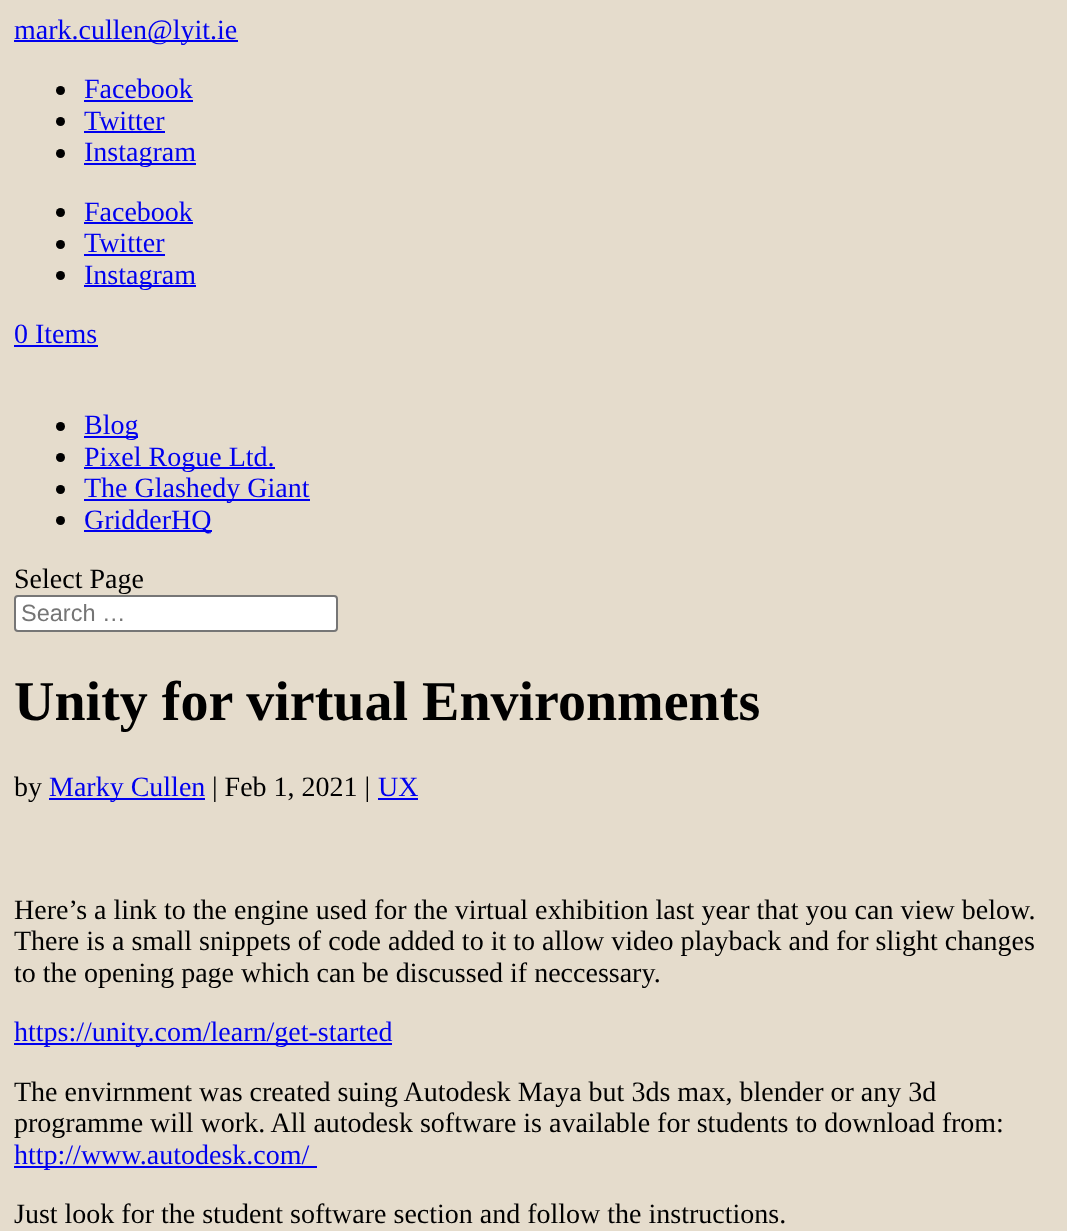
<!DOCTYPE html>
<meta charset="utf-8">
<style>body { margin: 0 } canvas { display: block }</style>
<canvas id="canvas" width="1067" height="1231"></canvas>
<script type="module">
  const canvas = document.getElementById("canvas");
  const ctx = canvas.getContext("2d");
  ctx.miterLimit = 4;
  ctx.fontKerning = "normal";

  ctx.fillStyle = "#e5dccc";
  ctx.fillRect(0, 0, 1067, 1231);
  ctx.fillStyle = "#0000ee";
  ctx.fillRect(14, 40, 224, 2);
  ctx.font = "28px Liberation Serif";
  ctx.fillText("mark.cullen@lyit.ie", 14, 39);
  ctx.fillStyle = "#000000";
  ctx.beginPath();
  ctx.arc(60.5, 90.5, 4.5, 0, Math.PI * 2);
  ctx.fill();
  ctx.fillStyle = "#0000ee";
  ctx.fillText("Facebook", 84, 98);
  ctx.fillRect(84, 100, 109, 2);
  ctx.fillStyle = "#000000";
  ctx.beginPath();
  ctx.arc(60.5, 121.5, 4.5, 0, Math.PI * 2);
  ctx.fill();
  ctx.fillStyle = "#0000ee";
  ctx.fillText("Twitter", 84, 130);
  ctx.fillRect(84, 131, 81, 2);
  ctx.fillStyle = "#000000";
  ctx.beginPath();
  ctx.arc(60.5, 153.5, 4.5, 0, Math.PI * 2);
  ctx.fill();
  ctx.fillStyle = "#0000ee";
  ctx.fillRect(84, 163, 112, 2);
  ctx.fillText("Instagram", 84, 161);
  ctx.fillStyle = "#000000";
  ctx.beginPath();
  ctx.arc(60.5, 212.5, 4.5, 0, Math.PI * 2);
  ctx.fill();
  ctx.fillStyle = "#0000ee";
  ctx.fillText("Facebook", 84, 221);
  ctx.fillRect(84, 222, 109, 2);
  ctx.fillStyle = "#000000";
  ctx.beginPath();
  ctx.arc(60.5, 244.5, 4.5, 0, Math.PI * 2);
  ctx.fill();
  ctx.fillStyle = "#0000ee";
  ctx.fillText("Twitter", 84, 252);
  ctx.fillRect(84, 254, 81, 2);
  ctx.fillStyle = "#000000";
  ctx.beginPath();
  ctx.arc(60.5, 275.5, 4.5, 0, Math.PI * 2);
  ctx.fill();
  ctx.fillStyle = "#0000ee";
  ctx.fillRect(84, 285, 112, 2);
  ctx.fillText("Instagram", 84, 284);
  ctx.fillText("0 Items", 14, 343);
  ctx.fillRect(14, 345, 84, 2);
  ctx.fillStyle = "#000000";
  ctx.beginPath();
  ctx.arc(60.5, 426.5, 4.5, 0, Math.PI * 2);
  ctx.fill();
  ctx.fillStyle = "#0000ee";
  ctx.fillRect(84, 436, 54, 2);
  ctx.fillText("Blog", 84, 434);
  ctx.fillStyle = "#000000";
  ctx.beginPath();
  ctx.arc(60.5, 457.5, 4.5, 0, Math.PI * 2);
  ctx.fill();
  ctx.fillStyle = "#0000ee";
  ctx.fillRect(84, 467, 191, 2);
  ctx.fillText("Pixel Rogue Ltd.", 84, 466);
  ctx.fillStyle = "#000000";
  ctx.beginPath();
  ctx.arc(60.5, 489.5, 4.5, 0, Math.PI * 2);
  ctx.fill();
  ctx.fillStyle = "#0000ee";
  ctx.fillRect(84, 499, 226, 2);
  ctx.fillText("The Glashedy Giant", 84, 497);
  ctx.fillStyle = "#000000";
  ctx.beginPath();
  ctx.arc(60.5, 520.5, 4.5, 0, Math.PI * 2);
  ctx.fill();
  ctx.fillStyle = "#0000ee";
  ctx.fillRect(84, 530, 128, 2);
  ctx.fillText("GridderHQ", 84, 529);
  ctx.fillStyle = "#000000";
  ctx.fillText("Select Page", 14, 588);
  ctx.fillStyle = "#ffffff";
  ctx.beginPath();
  ctx.roundRect(15, 596, 322, 35, 3);
  ctx.fill();
  ctx.strokeStyle = "#767676";
  ctx.lineWidth = 2;
  ctx.stroke();
  ctx.font = "23.5px Liberation Sans";
  ctx.fillStyle = "#757575";
  ctx.fillText("Search …", 21, 621);
  ctx.font = "bold 56px Liberation Serif";
  ctx.fillStyle = "#000000";
  ctx.fillText("Unity for virtual Environments", 14, 720);
  ctx.font = "28px Liberation Serif";
  ctx.fillText("by", 14, 796);
  ctx.fillStyle = "#0000ee";
  ctx.fillRect(49, 798, 156, 2);
  ctx.fillText("Marky Cullen", 49, 796);
  ctx.fillStyle = "#000000";
  ctx.fillText("| Feb 1, 2021 |", 212, 796);
  ctx.fillStyle = "#0000ee";
  ctx.fillText("UX", 378, 796);
  ctx.fillRect(378, 798, 40, 2);
  ctx.fillStyle = "#000000";
  ctx.fillText("Here’s a link to the engine used for the virtual exhibition last year that you can view below.", 14, 919);
  ctx.fillText("There is a small snippets of code added to it to allow video playback and for slight changes", 14, 950);
  ctx.fillText("to the opening page which can be discussed if neccessary.", 14, 982);
  ctx.fillStyle = "#0000ee";
  ctx.fillRect(14, 1043, 378, 2);
  ctx.fillText("https://unity.com/learn/get-started", 14, 1041);
  ctx.fillStyle = "#000000";
  ctx.fillText("The envirnment was created suing Autodesk Maya but 3ds max, blender or any 3d", 14, 1101);
  ctx.fillText("programme will work. All autodesk software is available for students to download from:", 14, 1132);
  ctx.fillStyle = "#0000ee";
  ctx.fillRect(14, 1166, 303, 2);
  ctx.fillText("http://www.autodesk.com/", 14, 1164);
  ctx.fillStyle = "#000000";
  ctx.fillText("Just look for the student software section and follow the instructions.", 14, 1223);
</script>
